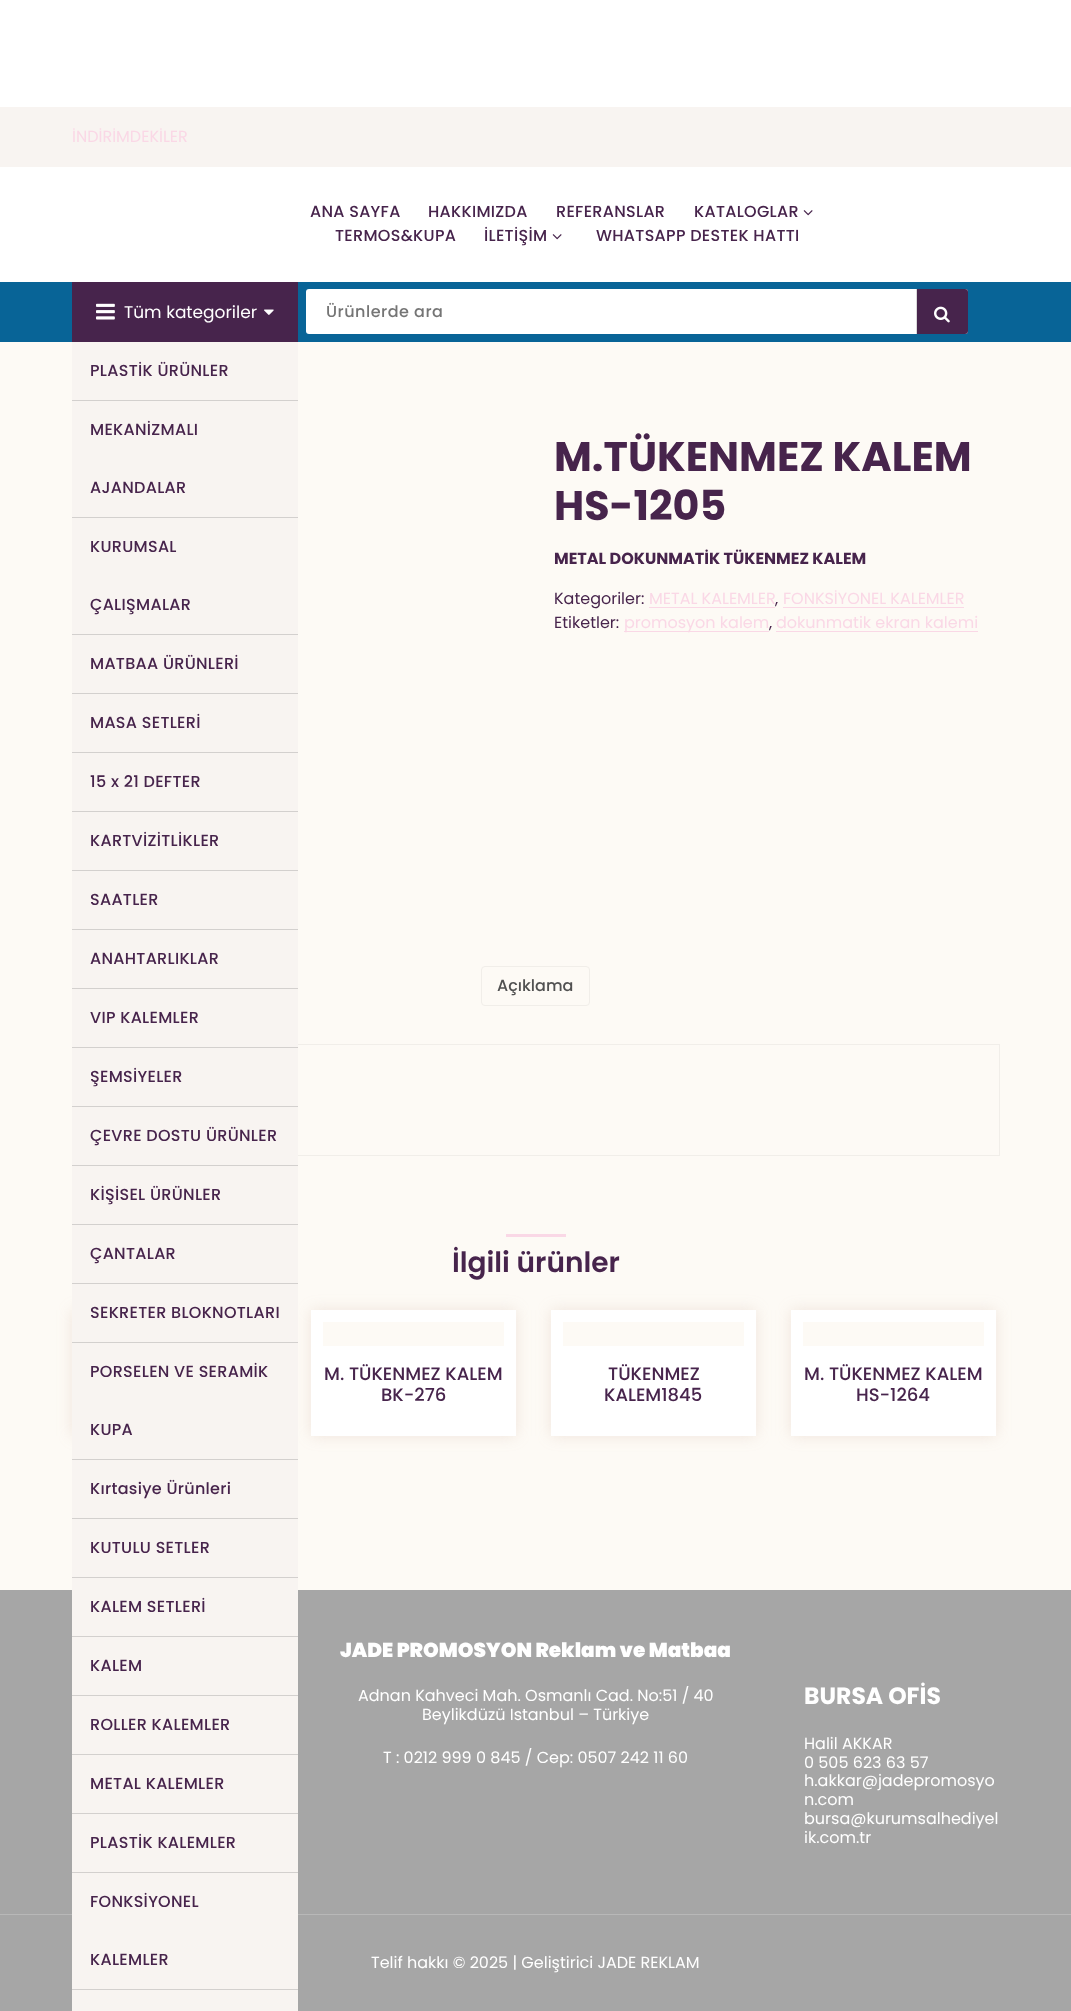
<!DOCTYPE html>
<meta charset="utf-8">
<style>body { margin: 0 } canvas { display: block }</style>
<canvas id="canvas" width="1071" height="2011"></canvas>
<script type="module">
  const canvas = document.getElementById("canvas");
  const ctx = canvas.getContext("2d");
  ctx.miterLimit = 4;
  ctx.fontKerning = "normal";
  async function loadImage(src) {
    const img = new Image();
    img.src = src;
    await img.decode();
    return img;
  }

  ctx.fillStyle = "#ffffff";
  ctx.fillRect(0, 0, 1071, 2011);
  ctx.fillStyle = "#f8f4f1";
  ctx.fillRect(0, 107, 1071, 60);
  ctx.font = "16px Poppins";
  ctx.fillStyle = "#fad8e6";
  ctx.fillText("İNDİRİMDEKİLER", 72, 142);
  ctx.letterSpacing = "0.3px";
  ctx.font = "500 16px Poppins";
  ctx.fillStyle = "#47244c";
  ctx.fillText("ANA SAYFA", 310, 217);
  ctx.fillText("HAKKIMIZDA", 428, 217);
  ctx.fillText("REFERANSLAR", 556, 217);
  ctx.fillText("KATALOGLAR", 694, 217);
  ctx.drawImage(await loadImage("img1.png"), 803, 210, 10, 6);
  ctx.fillText("TERMOS&KUPA", 335, 241);
  ctx.fillText("İLETİŞİM", 484, 241);
  ctx.drawImage(await loadImage("img1.png"), 552, 234, 10, 6);
  ctx.fillText("WHATSAPP DESTEK HATTI", 596, 241);
  ctx.fillStyle = "#086497";
  ctx.fillRect(0, 282, 1071, 60);
  ctx.fillStyle = "#47244c";
  ctx.fillRect(72, 282, 226, 60);
  ctx.drawImage(await loadImage("img2.png"), 96, 303, 19, 17);
  ctx.letterSpacing = "0px";
  ctx.font = "17px Poppins";
  ctx.fillStyle = "#ffffff";
  ctx.fillText("Tüm kategoriler", 124, 318);
  ctx.drawImage(await loadImage("img3.png"), 264, 309, 10, 6);
  ctx.fillStyle = "#fdfaf5";
  ctx.fillRect(0, 342, 1071, 1248);
  ctx.fillStyle = "#f8f4f1";
  ctx.fillRect(72, 342, 226, 58);
  ctx.fillStyle = "#d3d0ce";
  ctx.fillRect(72, 400, 226, 1);
  ctx.letterSpacing = "0.3px";
  ctx.font = "500 16px Poppins";
  ctx.fillStyle = "#47244c";
  ctx.fillText("PLASTİK ÜRÜNLER", 90, 376);
  ctx.fillStyle = "#f8f4f1";
  ctx.fillRect(72, 401, 226, 116);
  ctx.fillStyle = "#d3d0ce";
  ctx.fillRect(72, 517, 226, 1);
  ctx.fillStyle = "#47244c";
  ctx.fillText("MEKANİZMALI", 90, 435);
  ctx.fillText("AJANDALAR", 90, 493);
  ctx.fillStyle = "#f8f4f1";
  ctx.fillRect(72, 518, 226, 116);
  ctx.fillStyle = "#d3d0ce";
  ctx.fillRect(72, 634, 226, 1);
  ctx.fillStyle = "#47244c";
  ctx.fillText("KURUMSAL", 90, 552);
  ctx.fillText("ÇALIŞMALAR", 90, 610);
  ctx.fillStyle = "#f8f4f1";
  ctx.fillRect(72, 635, 226, 58);
  ctx.fillStyle = "#d3d0ce";
  ctx.fillRect(72, 693, 226, 1);
  ctx.fillStyle = "#47244c";
  ctx.fillText("MATBAA ÜRÜNLERİ", 90, 669);
  ctx.fillStyle = "#f8f4f1";
  ctx.fillRect(72, 694, 226, 58);
  ctx.fillStyle = "#d3d0ce";
  ctx.fillRect(72, 752, 226, 1);
  ctx.fillStyle = "#47244c";
  ctx.fillText("MASA SETLERİ", 90, 728);
  ctx.fillStyle = "#f8f4f1";
  ctx.fillRect(72, 753, 226, 58);
  ctx.fillStyle = "#d3d0ce";
  ctx.fillRect(72, 811, 226, 1);
  ctx.fillStyle = "#47244c";
  ctx.fillText("15 x 21 DEFTER", 90, 787);
  ctx.fillStyle = "#f8f4f1";
  ctx.fillRect(72, 812, 226, 58);
  ctx.fillStyle = "#d3d0ce";
  ctx.fillRect(72, 870, 226, 1);
  ctx.fillStyle = "#47244c";
  ctx.fillText("KARTVİZİTLİKLER", 90, 846);
  ctx.fillStyle = "#f8f4f1";
  ctx.fillRect(72, 871, 226, 58);
  ctx.fillStyle = "#d3d0ce";
  ctx.fillRect(72, 929, 226, 1);
  ctx.fillStyle = "#47244c";
  ctx.fillText("SAATLER", 90, 905);
  ctx.fillStyle = "#f8f4f1";
  ctx.fillRect(72, 930, 226, 58);
  ctx.fillStyle = "#d3d0ce";
  ctx.fillRect(72, 988, 226, 1);
  ctx.fillStyle = "#47244c";
  ctx.fillText("ANAHTARLIKLAR", 90, 964);
  ctx.strokeStyle = "#f1eee9";
  ctx.strokeRect(72.5, 1044.5, 927, 111);
  ctx.fillStyle = "#f8f4f1";
  ctx.fillRect(72, 989, 226, 58);
  ctx.fillStyle = "#d3d0ce";
  ctx.fillRect(72, 1047, 226, 1);
  ctx.fillStyle = "#47244c";
  ctx.fillText("VIP KALEMLER", 90, 1023);
  ctx.fillStyle = "#f8f4f1";
  ctx.fillRect(72, 1048, 226, 58);
  ctx.fillStyle = "#d3d0ce";
  ctx.fillRect(72, 1106, 226, 1);
  ctx.fillStyle = "#47244c";
  ctx.fillText("ŞEMSİYELER", 90, 1082);
  ctx.fillStyle = "#f8f4f1";
  ctx.fillRect(72, 1107, 226, 58);
  ctx.fillStyle = "#d3d0ce";
  ctx.fillRect(72, 1165, 226, 1);
  ctx.fillStyle = "#47244c";
  ctx.fillText("ÇEVRE DOSTU ÜRÜNLER", 90, 1141);
  ctx.fillStyle = "#f8f4f1";
  ctx.fillRect(72, 1166, 226, 58);
  ctx.fillStyle = "#d3d0ce";
  ctx.fillRect(72, 1224, 226, 1);
  ctx.fillStyle = "#47244c";
  ctx.fillText("KİŞİSEL ÜRÜNLER", 90, 1200);
  ctx.fillStyle = "#f8f4f1";
  ctx.fillRect(72, 1225, 226, 58);
  ctx.fillStyle = "#d3d0ce";
  ctx.fillRect(72, 1283, 226, 1);
  ctx.fillStyle = "#47244c";
  ctx.fillText("ÇANTALAR", 90, 1259);
  ctx.fillStyle = "rgba(186, 145, 123, 0.2)";
  ctx.filter = "blur(7.5px)";
  ctx.beginPath();
  ctx.rect(72, 1310, 204, 126);
  ctx.fill();
  ctx.filter = "none";
  ctx.filter = "blur(7.5px)";
  ctx.beginPath();
  ctx.rect(311, 1310, 205, 126);
  ctx.fill();
  ctx.filter = "none";
  ctx.fillStyle = "#f8f4f1";
  ctx.fillRect(72, 1284, 226, 58);
  ctx.fillStyle = "#d3d0ce";
  ctx.fillRect(72, 1342, 226, 1);
  ctx.fillStyle = "#47244c";
  ctx.fillText("SEKRETER BLOKNOTLARI", 90, 1318);
  ctx.fillStyle = "#f8f4f1";
  ctx.fillRect(72, 1343, 226, 116);
  ctx.fillStyle = "#d3d0ce";
  ctx.fillRect(72, 1459, 226, 1);
  ctx.fillStyle = "#47244c";
  ctx.fillText("PORSELEN VE SERAMİK", 90, 1377);
  ctx.fillText("KUPA", 90, 1435);
  ctx.fillStyle = "#f8f4f1";
  ctx.fillRect(72, 1460, 226, 58);
  ctx.fillStyle = "#d3d0ce";
  ctx.fillRect(72, 1518, 226, 1);
  ctx.fillStyle = "#47244c";
  ctx.fillText("Kırtasiye Ürünleri", 90, 1494);
  ctx.fillStyle = "#f8f4f1";
  ctx.fillRect(72, 1519, 226, 58);
  ctx.fillStyle = "#d3d0ce";
  ctx.fillRect(72, 1577, 226, 1);
  ctx.fillStyle = "#47244c";
  ctx.fillText("KUTULU SETLER", 90, 1553);
  ctx.fillStyle = "#a6a6a6";
  ctx.fillRect(0, 1590, 1071, 421);
  ctx.fillStyle = "#f8f4f1";
  ctx.fillRect(72, 1578, 226, 58);
  ctx.fillStyle = "#d3d0ce";
  ctx.fillRect(72, 1636, 226, 1);
  ctx.fillStyle = "#47244c";
  ctx.fillText("KALEM SETLERİ", 90, 1612);
  ctx.fillStyle = "#f8f4f1";
  ctx.fillRect(72, 1637, 226, 58);
  ctx.fillStyle = "#d3d0ce";
  ctx.fillRect(72, 1695, 226, 1);
  ctx.fillStyle = "#47244c";
  ctx.fillText("KALEM", 90, 1671);
  ctx.fillStyle = "#f8f4f1";
  ctx.fillRect(72, 1696, 226, 58);
  ctx.fillStyle = "#d3d0ce";
  ctx.fillRect(72, 1754, 226, 1);
  ctx.fillStyle = "#47244c";
  ctx.fillText("ROLLER KALEMLER", 90, 1730);
  ctx.fillStyle = "#f8f4f1";
  ctx.fillRect(72, 1755, 226, 58);
  ctx.fillStyle = "#d3d0ce";
  ctx.fillRect(72, 1813, 226, 1);
  ctx.fillStyle = "#47244c";
  ctx.fillText("METAL KALEMLER", 90, 1789);
  ctx.fillStyle = "#f8f4f1";
  ctx.fillRect(72, 1814, 226, 58);
  ctx.fillStyle = "#d3d0ce";
  ctx.fillRect(72, 1872, 226, 1);
  ctx.fillStyle = "#47244c";
  ctx.fillText("PLASTİK KALEMLER", 90, 1848);
  ctx.fillStyle = "#b8b8b8";
  ctx.fillRect(0, 1914, 1071, 1);
  ctx.fillStyle = "#f8f4f1";
  ctx.fillRect(72, 1873, 226, 116);
  ctx.fillStyle = "#d3d0ce";
  ctx.fillRect(72, 1989, 226, 1);
  ctx.fillStyle = "#47244c";
  ctx.fillText("FONKSİYONEL", 90, 1907);
  ctx.fillText("KALEMLER", 90, 1965);
  ctx.fillStyle = "#f8f4f1";
  ctx.fillRect(72, 1990, 226, 21);
  ctx.fillStyle = "#ffffff";
  ctx.beginPath();
  ctx.roundRect(306, 289, 662, 45, 3);
  ctx.fill();
  ctx.letterSpacing = "0.5px";
  ctx.fillStyle = "#757575";
  ctx.fillText("Ürünlerde ara", 326, 317);
  ctx.fillStyle = "#47244c";
  ctx.beginPath();
  ctx.roundRect(916, 289, 52, 45, [0, 3, 3, 0]);
  ctx.fill();
  ctx.fillStyle = "#d9d9d9";
  ctx.fillRect(916, 289, 1, 45);
  ctx.drawImage(await loadImage("img4.png"), 934, 306, 16, 17);
  ctx.letterSpacing = "0px";
  ctx.font = "bold 41.25px Poppins";
  ctx.fillStyle = "#47244c";
  ctx.fillText("M.TÜKENMEZ KALEM", 554, 471);
  ctx.fillText("HS-1205", 554, 520);
  ctx.font = "bold 16px Poppins";
  ctx.fillText("METAL DOKUNMATİK TÜKENMEZ KALEM", 554, 564);
  ctx.font = "16px Poppins";
  ctx.fillText("Kategoriler:", 554, 604);
  ctx.fillStyle = "#fad8e6";
  ctx.fillText("METAL KALEMLER", 649, 604);
  ctx.fillText("FONKSİYONEL KALEMLER", 783, 604);
  ctx.fillStyle = "#47244c";
  ctx.fillText(",", 775, 604);
  ctx.fillStyle = "#fad8e6";
  ctx.fillRect(649, 607, 126, 1);
  ctx.fillRect(783, 607, 181, 1);
  ctx.fillStyle = "#47244c";
  ctx.fillText("Etiketler:", 554, 628);
  ctx.fillStyle = "#fad8e6";
  ctx.fillRect(624, 631, 145, 1);
  ctx.fillText("promosyon kalem", 624, 628);
  ctx.fillStyle = "#47244c";
  ctx.fillText(",", 769, 628);
  ctx.fillStyle = "#fad8e6";
  ctx.fillRect(776, 631, 202, 1);
  ctx.fillText("dokunmatik ekran kalemi", 776, 628);
  ctx.beginPath();
  ctx.roundRect(481.5, 966.5, 108, 39, 3.5);
  ctx.stroke();
  ctx.font = "500 16px Poppins";
  ctx.fillStyle = "#515151";
  ctx.fillText("Açıklama", 497, 991);
  ctx.fillStyle = "#fad8e6";
  ctx.fillRect(506, 1234, 60, 3);
  ctx.font = "600 28px Poppins";
  ctx.fillStyle = "#47244c";
  ctx.fillText("İlgili ürünler", 452, 1272);
  ctx.fillStyle = "#ffffff";
  ctx.fillRect(311, 1310, 205, 126);
  ctx.fillStyle = "#fdfaf5";
  ctx.fillRect(323, 1322, 181, 24);
  ctx.font = "500 18px Poppins";
  ctx.fillStyle = "#47244c";
  ctx.fillText("M. TÜKENMEZ KALEM", 324, 1380);
  ctx.fillText("BK-276", 381, 1401);
  ctx.fillStyle = "rgba(186, 145, 123, 0.2)";
  ctx.filter = "blur(7.5px)";
  ctx.beginPath();
  ctx.rect(551, 1310, 205, 126);
  ctx.fill();
  ctx.filter = "none";
  ctx.fillStyle = "#ffffff";
  ctx.fillRect(551, 1310, 205, 126);
  ctx.fillStyle = "#fdfaf5";
  ctx.fillRect(563, 1322, 181, 24);
  ctx.fillStyle = "#47244c";
  ctx.fillText("TÜKENMEZ", 608, 1380);
  ctx.fillText("KALEM1845", 604, 1401);
  ctx.fillStyle = "rgba(186, 145, 123, 0.2)";
  ctx.filter = "blur(7.5px)";
  ctx.beginPath();
  ctx.rect(791, 1310, 205, 126);
  ctx.fill();
  ctx.filter = "none";
  ctx.fillStyle = "#ffffff";
  ctx.fillRect(791, 1310, 205, 126);
  ctx.fillStyle = "#fdfaf5";
  ctx.fillRect(803, 1322, 181, 24);
  ctx.fillStyle = "#47244c";
  ctx.fillText("M. TÜKENMEZ KALEM", 804, 1380);
  ctx.fillText("HS-1264", 856, 1401);
  ctx.font = "900 20px Poppins";
  ctx.fillStyle = "#ffffff";
  ctx.fillText("JADE PROMOSYON Reklam ve Matbaa", 340, 1657);
  ctx.font = "16px Poppins";
  ctx.fillText("Adnan Kahveci Mah. Osmanlı Cad. No:51 / 40", 358, 1701);
  ctx.fillText("Beylikdüzü Istanbul – Türkiye", 422, 1720);
  ctx.fillText("T : 0212 999 0 845 / Cep: 0507 242 11 60", 383, 1763);
  ctx.font = "bold 23.5px Poppins";
  ctx.fillText("BURSA OFİS", 804, 1704);
  ctx.font = "16px Poppins";
  ctx.fillText("Halil AKKAR", 804, 1749);
  ctx.fillText("0 505 623 63 57", 804, 1768);
  ctx.fillText("h.akkar@jadepromosyo", 804, 1786);
  ctx.fillText("n.com", 804, 1805);
  ctx.fillText("bursa@kurumsalhediyel", 804, 1824);
  ctx.fillText("ik.com.tr", 804, 1843);
  ctx.fillText("Telif hakkı © 2025 | Geliştirici JADE REKLAM", 371, 1968);
</script>
